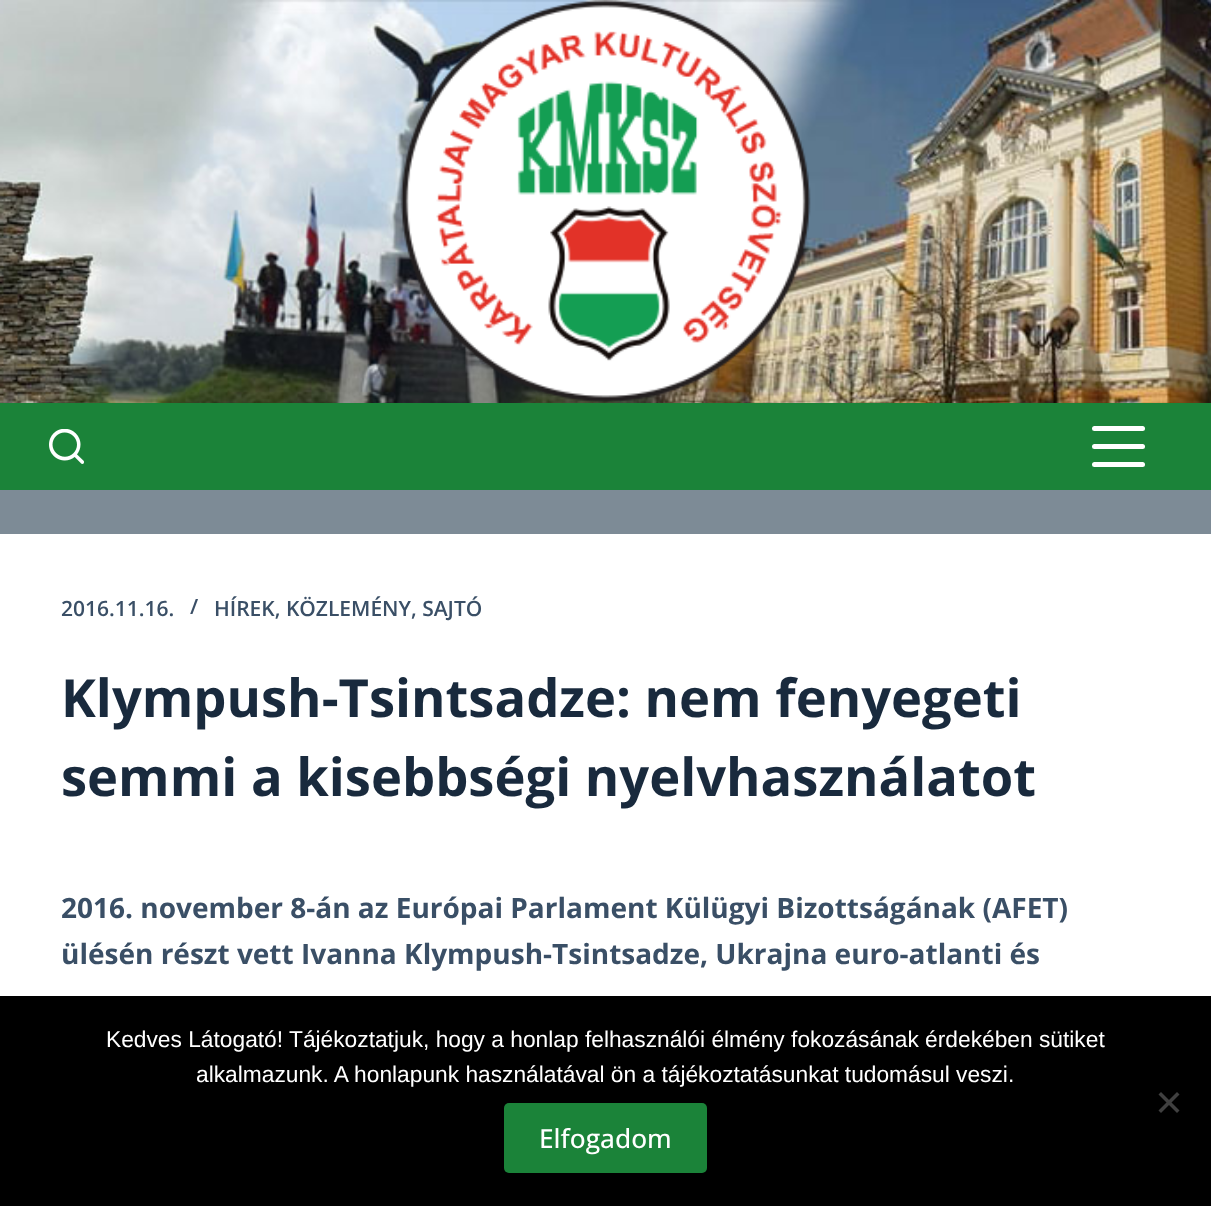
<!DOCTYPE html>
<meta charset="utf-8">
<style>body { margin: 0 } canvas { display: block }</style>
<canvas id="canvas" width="1211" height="1206"></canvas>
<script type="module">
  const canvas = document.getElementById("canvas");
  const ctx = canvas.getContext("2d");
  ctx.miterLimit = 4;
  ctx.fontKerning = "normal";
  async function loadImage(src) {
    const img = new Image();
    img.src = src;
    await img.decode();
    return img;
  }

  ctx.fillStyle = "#7d8b96";
  ctx.fillRect(0, 0, 1211, 1206);
  ctx.drawImage(await loadImage("img1.png"), 0, 0, 1211, 403);
  ctx.drawImage(await loadImage("img2.png"), 400, 0, 411, 403);
  ctx.fillStyle = "#1b8339";
  ctx.fillRect(0, 403, 1211, 87);
  ctx.drawImage(await loadImage("img3.png"), 49, 429, 35, 35);
  ctx.fillStyle = "#ffffff";
  ctx.beginPath();
  ctx.roundRect(1092, 426, 53, 5, 2.5);
  ctx.fill();
  ctx.beginPath();
  ctx.roundRect(1092, 444, 53, 5, 2.5);
  ctx.fill();
  ctx.beginPath();
  ctx.roundRect(1092, 462, 53, 5, 2.5);
  ctx.fill();
  ctx.fillRect(0, 534, 1211, 462);
  ctx.font = "600 21px Open Sans";
  ctx.fillStyle = "#3a4f66";
  ctx.fillText("2016.11.16.", 61, 616);
  ctx.fillText("/", 190, 614);
  ctx.fillText("HÍREK, KÖZLEMÉNY, SAJTÓ", 214, 616);
  ctx.font = "bold 52.5px Open Sans";
  ctx.fillStyle = "#192a3d";
  ctx.fillText("Klympush-Tsintsadze: nem fenyegeti", 61, 717);
  ctx.fillText("semmi a kisebbségi nyelvhasználatot", 61, 796);
  ctx.font = "bold 28px Open Sans";
  ctx.fillStyle = "#3a4f66";
  ctx.fillText("2016. november 8-án az Európai Parlament Külügyi Bizottságának (AFET)", 61, 918);
  ctx.fillText("ülésén részt vett Ivanna Klympush-Tsintsadze, Ukrajna euro-atlanti és", 61, 964);
  ctx.fillStyle = "#000000";
  ctx.fillRect(0, 996, 1211, 210);
  ctx.font = "22.75px Liberation Sans";
  ctx.fillStyle = "#ffffff";
  ctx.fillText("Kedves Látogató! Tájékoztatjuk, hogy a honlap felhasználói élmény fokozásának érdekében sütiket", 106, 1047);
  ctx.fillText("alkalmazunk. A honlapunk használatával ön a tájékoztatásunkat tudomásul veszi.", 196, 1082);
  ctx.fillStyle = "#404040";
  ctx.beginPath();
  ctx.moveTo(1177, 1092);
  ctx.lineTo(1179.5, 1094.5);
  ctx.lineTo(1161, 1113);
  ctx.lineTo(1158.5, 1110.5);
  ctx.closePath();
  ctx.fill();
  ctx.beginPath();
  ctx.moveTo(1158.5, 1094.5);
  ctx.lineTo(1161, 1092);
  ctx.lineTo(1179.5, 1110.5);
  ctx.lineTo(1177, 1113);
  ctx.closePath();
  ctx.fill();
  ctx.fillStyle = "#1b8339";
  ctx.beginPath();
  ctx.roundRect(504, 1103, 203, 70, 5);
  ctx.fill();
  ctx.font = "500 26.25px Open Sans";
  ctx.fillStyle = "#ffffff";
  ctx.fillText("Elfogadom", 539, 1148);
</script>
